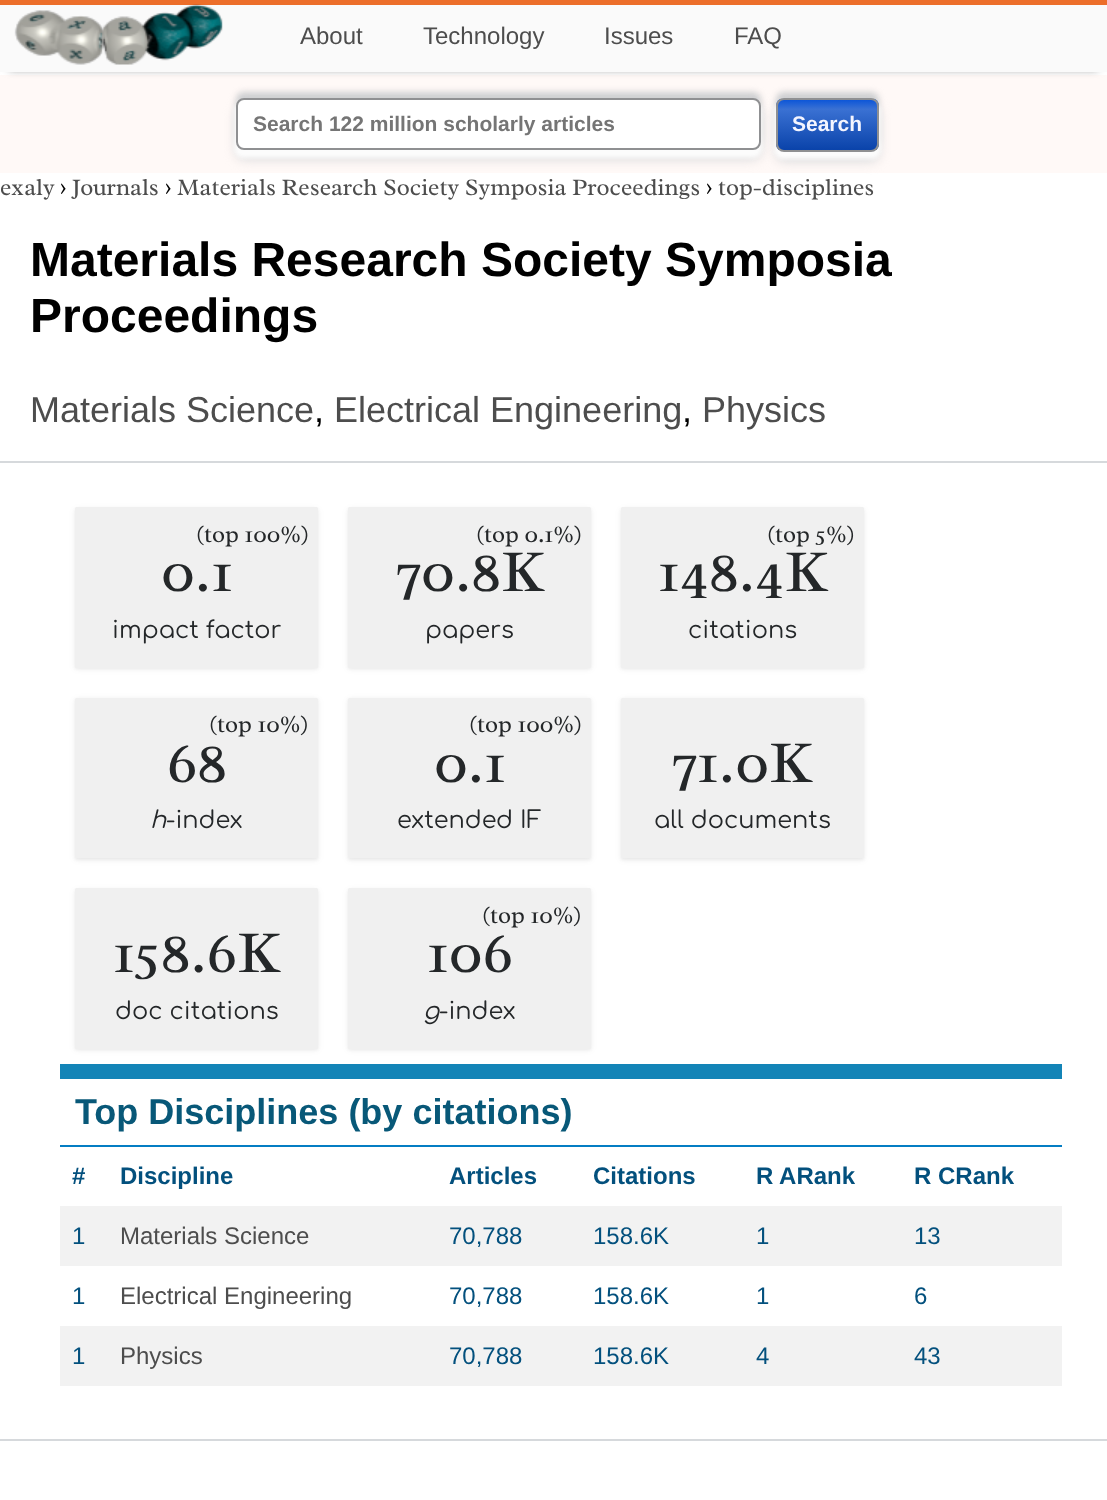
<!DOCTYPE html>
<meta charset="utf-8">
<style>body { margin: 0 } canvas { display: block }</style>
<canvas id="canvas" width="1107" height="1500"></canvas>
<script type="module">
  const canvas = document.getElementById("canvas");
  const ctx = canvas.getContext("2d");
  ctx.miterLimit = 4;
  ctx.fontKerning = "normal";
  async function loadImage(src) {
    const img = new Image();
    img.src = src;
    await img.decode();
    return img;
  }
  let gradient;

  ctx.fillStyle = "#ffffff";
  ctx.fillRect(0, 0, 1107, 1500);
  ctx.fillStyle = "#fff9f7";
  ctx.fillRect(0, 75, 1107, 98);
  ctx.fillStyle = "#777777";
  ctx.filter = "blur(4.5px)";
  ctx.beginPath();
  ctx.rect(9, 15, 1089, 54);
  ctx.fill();
  ctx.filter = "none";
  ctx.fillStyle = "#fafafa";
  ctx.fillRect(0, 5, 1107, 67);
  ctx.fillStyle = "#ec6e2a";
  ctx.fillRect(0, 0, 1107, 5);
  ctx.drawImage(await loadImage("img1.png"), 14, 4, 209, 61);
  ctx.font = "24px Liberation Sans";
  ctx.fillStyle = "#4d4d4d";
  ctx.fillText("About", 300, 44);
  ctx.fillText("Technology", 423, 44);
  ctx.fillText("Issues", 604, 44);
  ctx.fillText("FAQ", 734, 44);
  ctx.fillStyle = "#cecfd1";
  ctx.filter = "blur(3px)";
  ctx.beginPath();
  ctx.roundRect(236, 92, 525, 52, 8);
  ctx.fill();
  ctx.filter = "none";
  ctx.fillStyle = "#d6d7d9";
  ctx.filter = "blur(6px)";
  ctx.beginPath();
  ctx.roundRect(236, 107, 525, 52, 8);
  ctx.fill();
  ctx.filter = "none";
  ctx.fillStyle = "#fcfcfc";
  ctx.filter = "blur(2px)";
  ctx.beginPath();
  ctx.roundRect(234, 102, 528, 56, 9);
  ctx.fill();
  ctx.filter = "none";
  ctx.fillStyle = "#ffffff";
  ctx.beginPath();
  ctx.roundRect(237, 99, 523, 50, 7);
  ctx.fill();
  ctx.strokeStyle = "#8f9092";
  ctx.lineWidth = 2;
  ctx.stroke();
  ctx.font = "bold 21px Liberation Sans";
  ctx.fillStyle = "#757575";
  ctx.fillText("Search 122 million scholarly articles", 253, 131);
  ctx.fillStyle = "#cecfd1";
  ctx.filter = "blur(3px)";
  ctx.beginPath();
  ctx.roundRect(776, 92, 103, 54, 8);
  ctx.fill();
  ctx.filter = "none";
  ctx.fillStyle = "#d6d7d9";
  ctx.filter = "blur(6px)";
  ctx.beginPath();
  ctx.roundRect(776, 107, 103, 54, 8);
  ctx.fill();
  ctx.filter = "none";
  ctx.fillStyle = "#fcfcfc";
  ctx.filter = "blur(2px)";
  ctx.beginPath();
  ctx.roundRect(774, 102, 107, 57, 9);
  ctx.fill();
  ctx.filter = "none";
  ctx.save();
  ctx.beginPath();
  ctx.roundRect(776, 98, 103, 54, 8);
  ctx.clip();
  gradient = ctx.createLinearGradient(827, 150, 827, 99);
  gradient.addColorStop(0, "#0a43aa");
  gradient.addColorStop(0.8, "#3a71d3");
  gradient.addColorStop(1, "#0853d8");
  ctx.fillStyle = gradient;
  ctx.fillRect(776, 99, 103, 51);
  ctx.restore();
  ctx.beginPath();
  ctx.roundRect(777, 99, 101, 52, 7);
  ctx.stroke();
  ctx.fillStyle = "#f4f5ff";
  ctx.fillText("Search", 792, 131);
  ctx.font = "24px Radley";
  ctx.fillStyle = "#4d4d4d";
  ctx.fillText("exaly", 0, 195);
  ctx.fillStyle = "#000000";
  ctx.fillText("›", 60, 195);
  ctx.fillStyle = "#4d4d4d";
  ctx.fillText("Journals", 72, 195);
  ctx.fillStyle = "#000000";
  ctx.fillText("›", 165, 195);
  ctx.fillStyle = "#4d4d4d";
  ctx.fillText("Materials Research Society Symposia Proceedings", 177, 195);
  ctx.fillStyle = "#000000";
  ctx.fillText("›", 706, 195);
  ctx.fillStyle = "#4d4d4d";
  ctx.fillText("top-disciplines", 718, 195);
  ctx.fillStyle = "#d6d9dc";
  ctx.fillRect(0, 461, 1107, 2);
  ctx.font = "bold 48px Liberation Sans";
  ctx.fillStyle = "#000000";
  ctx.fillText("Materials Research Society Symposia", 30, 276);
  ctx.fillText("Proceedings", 30, 332);
  ctx.font = "36px Liberation Sans";
  ctx.fillStyle = "#4d4d4d";
  ctx.fillText("Materials Science", 30, 422);
  ctx.fillStyle = "#000000";
  ctx.fillText(",", 314, 422);
  ctx.fillStyle = "#4d4d4d";
  ctx.fillText("Electrical Engineering", 334, 422);
  ctx.fillStyle = "#000000";
  ctx.fillText(",", 682, 422);
  ctx.fillStyle = "#4d4d4d";
  ctx.fillText("Physics", 702, 422);
  ctx.fillStyle = "#d6d9dc";
  ctx.fillRect(0, 1439, 1107, 2);
  ctx.fillStyle = "rgba(0, 0, 0, 0.05)";
  ctx.filter = "blur(3px)";
  ctx.beginPath();
  ctx.roundRect(75, 509, 243, 160, 1.5);
  ctx.fill();
  ctx.filter = "none";
  ctx.filter = "blur(1.5px)";
  ctx.beginPath();
  ctx.roundRect(75, 509, 243, 160, 1.5);
  ctx.fill();
  ctx.filter = "none";
  ctx.fillStyle = "#f0f0f0";
  ctx.beginPath();
  ctx.roundRect(75, 507, 243, 161, 1.5);
  ctx.fill();
  ctx.font = "24px Radley";
  ctx.fillStyle = "#242729";
  ctx.fillText("(top 100%)", 196, 542);
  ctx.font = "60px Radley";
  ctx.fillText("0.1", 161, 591);
  ctx.font = "24px Comfortaa";
  ctx.fillText("impact factor", 112, 638);
  ctx.fillStyle = "rgba(0, 0, 0, 0.05)";
  ctx.filter = "blur(3px)";
  ctx.beginPath();
  ctx.roundRect(348, 509, 243, 160, 1.5);
  ctx.fill();
  ctx.filter = "none";
  ctx.filter = "blur(1.5px)";
  ctx.beginPath();
  ctx.roundRect(348, 509, 243, 160, 1.5);
  ctx.fill();
  ctx.filter = "none";
  ctx.fillStyle = "#f0f0f0";
  ctx.beginPath();
  ctx.roundRect(348, 507, 243, 161, 1.5);
  ctx.fill();
  ctx.font = "24px Radley";
  ctx.fillStyle = "#242729";
  ctx.fillText("(top 0.1%)", 476, 542);
  ctx.font = "60px Radley";
  ctx.fillText("70.8K", 396, 591);
  ctx.font = "24px Comfortaa";
  ctx.fillText("papers", 425, 638);
  ctx.fillStyle = "rgba(0, 0, 0, 0.05)";
  ctx.filter = "blur(3px)";
  ctx.beginPath();
  ctx.roundRect(621, 509, 243, 160, 1.5);
  ctx.fill();
  ctx.filter = "none";
  ctx.filter = "blur(1.5px)";
  ctx.beginPath();
  ctx.roundRect(621, 509, 243, 160, 1.5);
  ctx.fill();
  ctx.filter = "none";
  ctx.fillStyle = "#f0f0f0";
  ctx.beginPath();
  ctx.roundRect(621, 507, 243, 161, 1.5);
  ctx.fill();
  ctx.font = "24px Radley";
  ctx.fillStyle = "#242729";
  ctx.fillText("(top 5%)", 767, 542);
  ctx.font = "60px Radley";
  ctx.fillText("148.4K", 658, 591);
  ctx.font = "24px Comfortaa";
  ctx.fillText("citations", 688, 638);
  ctx.fillStyle = "rgba(0, 0, 0, 0.05)";
  ctx.filter = "blur(3px)";
  ctx.beginPath();
  ctx.roundRect(75, 699, 243, 161, 1.5);
  ctx.fill();
  ctx.filter = "none";
  ctx.filter = "blur(1.5px)";
  ctx.beginPath();
  ctx.roundRect(75, 699, 243, 161, 1.5);
  ctx.fill();
  ctx.filter = "none";
  ctx.fillStyle = "#f0f0f0";
  ctx.beginPath();
  ctx.roundRect(75, 698, 243, 160, 1.5);
  ctx.fill();
  ctx.font = "24px Radley";
  ctx.fillStyle = "#242729";
  ctx.fillText("(top 10%)", 209, 732);
  ctx.font = "60px Radley";
  ctx.fillText("68", 167, 782);
  ctx.font = "italic 24px Comfortaa";
  ctx.fillText("h", 150, 828);
  ctx.font = "24px Comfortaa";
  ctx.fillText("-index", 166, 828);
  ctx.fillStyle = "rgba(0, 0, 0, 0.05)";
  ctx.filter = "blur(3px)";
  ctx.beginPath();
  ctx.roundRect(348, 699, 243, 161, 1.5);
  ctx.fill();
  ctx.filter = "none";
  ctx.filter = "blur(1.5px)";
  ctx.beginPath();
  ctx.roundRect(348, 699, 243, 161, 1.5);
  ctx.fill();
  ctx.filter = "none";
  ctx.fillStyle = "#f0f0f0";
  ctx.beginPath();
  ctx.roundRect(348, 698, 243, 160, 1.5);
  ctx.fill();
  ctx.font = "24px Radley";
  ctx.fillStyle = "#242729";
  ctx.fillText("(top 100%)", 469, 732);
  ctx.font = "60px Radley";
  ctx.fillText("0.1", 434, 782);
  ctx.font = "24px Comfortaa";
  ctx.fillText("extended IF", 397, 828);
  ctx.fillStyle = "rgba(0, 0, 0, 0.05)";
  ctx.filter = "blur(3px)";
  ctx.beginPath();
  ctx.roundRect(621, 699, 243, 161, 1.5);
  ctx.fill();
  ctx.filter = "none";
  ctx.filter = "blur(1.5px)";
  ctx.beginPath();
  ctx.roundRect(621, 699, 243, 161, 1.5);
  ctx.fill();
  ctx.filter = "none";
  ctx.fillStyle = "#f0f0f0";
  ctx.beginPath();
  ctx.roundRect(621, 698, 243, 160, 1.5);
  ctx.fill();
  ctx.font = "60px Radley";
  ctx.fillStyle = "#242729";
  ctx.fillText("71.0K", 672, 782);
  ctx.font = "24px Comfortaa";
  ctx.fillText("all documents", 654, 828);
  ctx.fillStyle = "rgba(0, 0, 0, 0.05)";
  ctx.filter = "blur(3px)";
  ctx.beginPath();
  ctx.roundRect(75, 890, 243, 160, 1.5);
  ctx.fill();
  ctx.filter = "none";
  ctx.filter = "blur(1.5px)";
  ctx.beginPath();
  ctx.roundRect(75, 890, 243, 160, 1.5);
  ctx.fill();
  ctx.filter = "none";
  ctx.fillStyle = "#f0f0f0";
  ctx.beginPath();
  ctx.roundRect(75, 888, 243, 161, 1.5);
  ctx.fill();
  ctx.font = "60px Radley";
  ctx.fillStyle = "#242729";
  ctx.fillText("158.6K", 113, 972);
  ctx.font = "24px Comfortaa";
  ctx.fillText("doc citations", 115, 1019);
  ctx.fillStyle = "rgba(0, 0, 0, 0.05)";
  ctx.filter = "blur(3px)";
  ctx.beginPath();
  ctx.roundRect(348, 890, 243, 160, 1.5);
  ctx.fill();
  ctx.filter = "none";
  ctx.filter = "blur(1.5px)";
  ctx.beginPath();
  ctx.roundRect(348, 890, 243, 160, 1.5);
  ctx.fill();
  ctx.filter = "none";
  ctx.fillStyle = "#f0f0f0";
  ctx.beginPath();
  ctx.roundRect(348, 888, 243, 161, 1.5);
  ctx.fill();
  ctx.font = "24px Radley";
  ctx.fillStyle = "#242729";
  ctx.fillText("(top 10%)", 482, 923);
  ctx.font = "60px Radley";
  ctx.fillText("106", 427, 972);
  ctx.font = "italic 24px Comfortaa";
  ctx.fillText("g", 423, 1019);
  ctx.font = "24px Comfortaa";
  ctx.fillText("-index", 439, 1019);
  ctx.fillStyle = "#1384b7";
  ctx.fillRect(60, 1064, 1002, 15);
  ctx.fillStyle = "#047dc3";
  ctx.fillRect(60, 1145, 1002, 2);
  ctx.font = "bold 36px Liberation Sans";
  ctx.fillStyle = "#085878";
  ctx.fillText("Top Disciplines (by citations)", 75, 1124);
  ctx.font = "bold 24px Liberation Sans";
  ctx.fillStyle = "#03507d";
  ctx.fillText("#", 72, 1184);
  ctx.fillText("Discipline", 120, 1184);
  ctx.fillText("Articles", 449, 1184);
  ctx.fillText("Citations", 593, 1184);
  ctx.fillText("R ARank", 756, 1184);
  ctx.fillText("R CRank", 914, 1184);
  ctx.fillStyle = "#f2f2f2";
  ctx.fillRect(60, 1206, 1002, 60);
  ctx.font = "24px Liberation Sans";
  ctx.fillStyle = "#03507d";
  ctx.fillText("1", 72, 1244);
  ctx.fillStyle = "#4d4d4d";
  ctx.fillText("Materials Science", 120, 1244);
  ctx.fillStyle = "#03507d";
  ctx.fillText("70,788", 449, 1244);
  ctx.fillText("158.6K", 593, 1244);
  ctx.fillText("1", 756, 1244);
  ctx.fillText("13", 914, 1244);
  ctx.fillText("1", 72, 1304);
  ctx.fillStyle = "#4d4d4d";
  ctx.fillText("Electrical Engineering", 120, 1304);
  ctx.fillStyle = "#03507d";
  ctx.fillText("70,788", 449, 1304);
  ctx.fillText("158.6K", 593, 1304);
  ctx.fillText("1", 756, 1304);
  ctx.fillText("6", 914, 1304);
  ctx.fillStyle = "#f2f2f2";
  ctx.fillRect(60, 1326, 1002, 60);
  ctx.fillStyle = "#03507d";
  ctx.fillText("1", 72, 1364);
  ctx.fillStyle = "#4d4d4d";
  ctx.fillText("Physics", 120, 1364);
  ctx.fillStyle = "#03507d";
  ctx.fillText("70,788", 449, 1364);
  ctx.fillText("158.6K", 593, 1364);
  ctx.fillText("4", 756, 1364);
  ctx.fillText("43", 914, 1364);
</script>
